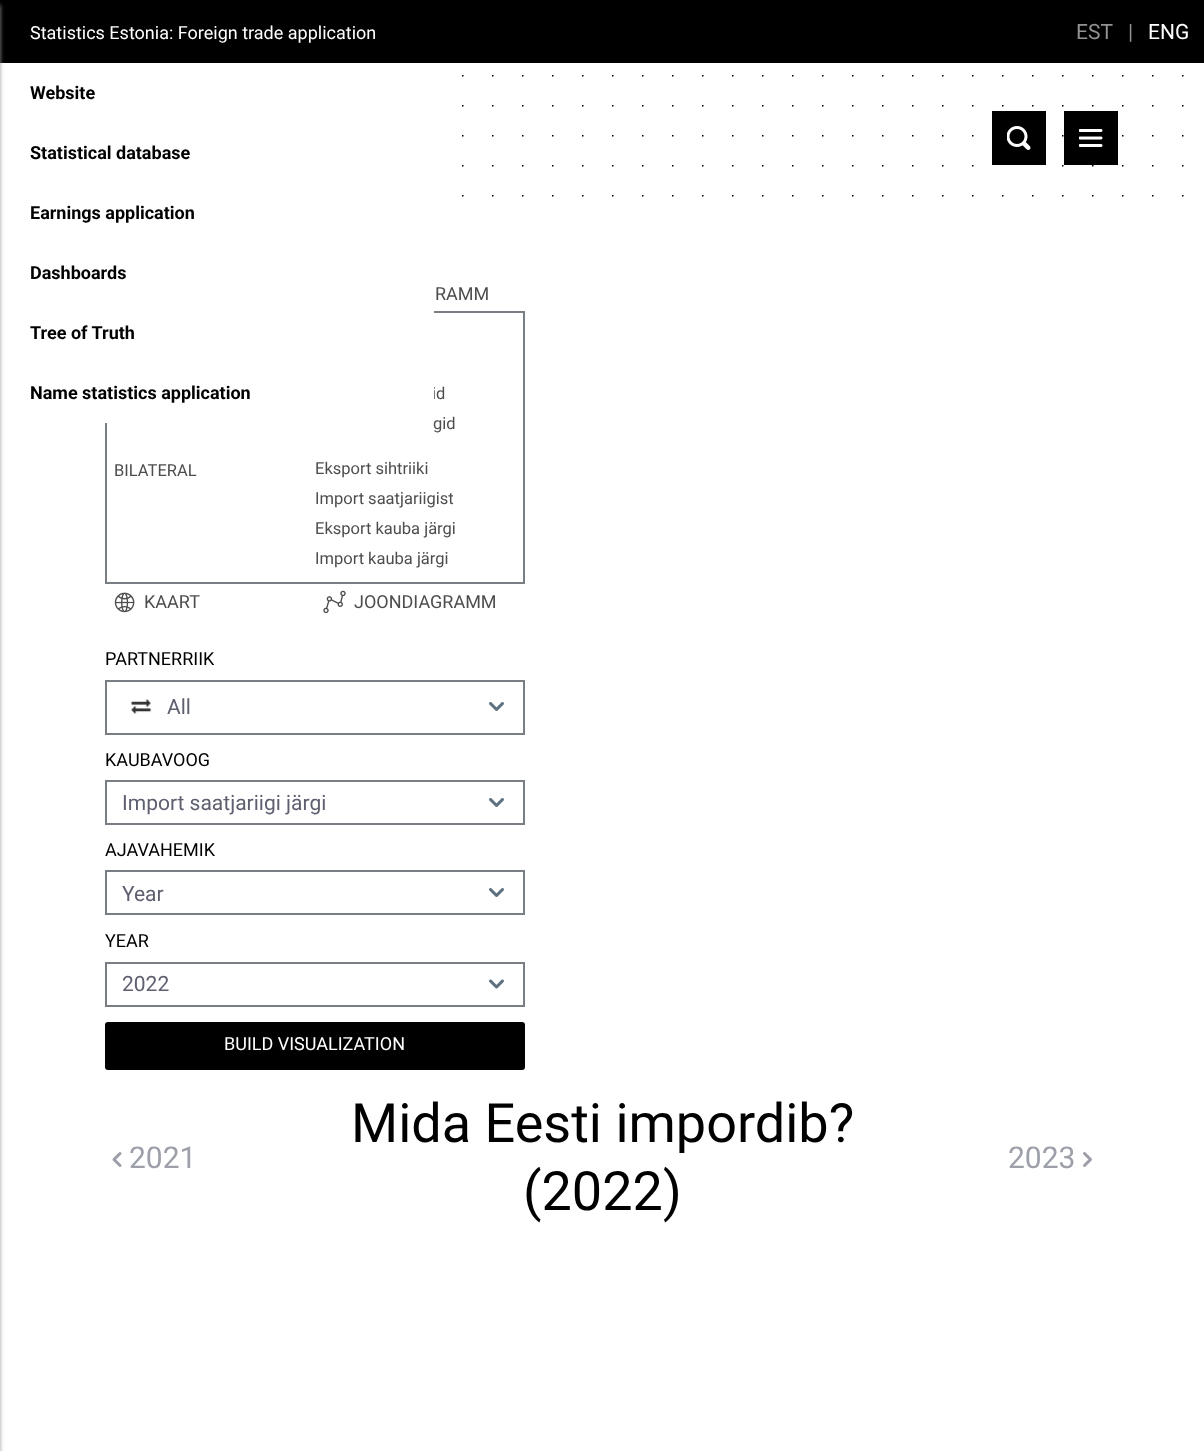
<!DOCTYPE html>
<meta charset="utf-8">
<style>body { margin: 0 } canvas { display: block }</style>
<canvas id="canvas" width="1204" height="1451"></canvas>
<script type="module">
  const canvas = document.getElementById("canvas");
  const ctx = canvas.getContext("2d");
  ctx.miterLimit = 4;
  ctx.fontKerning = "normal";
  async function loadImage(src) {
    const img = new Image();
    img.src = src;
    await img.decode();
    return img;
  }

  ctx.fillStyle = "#ffffff";
  ctx.fillRect(0, 0, 1204, 1451);
  ctx.drawImage(await loadImage("img1.png"), 462, 75, 722, 122);
  ctx.fillStyle = "#000000";
  ctx.fillRect(0, 0, 1204, 63);
  ctx.fillStyle = "rgba(153, 153, 153, 0.99)";
  ctx.filter = "blur(2px)";
  ctx.beginPath();
  ctx.rect(-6, 5, 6, 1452);
  ctx.fill();
  ctx.filter = "none";
  ctx.fillStyle = "#000000";
  ctx.beginPath();
  ctx.rect(990.5, 109.5, 57, 57);
  ctx.fill();
  ctx.strokeStyle = "#ffffff";
  ctx.lineWidth = 3;
  ctx.stroke();
  ctx.drawImage(await loadImage("img2.png"), 1007, 126, 24, 24);
  ctx.fillRect(1064, 111, 54, 54);
  ctx.drawImage(await loadImage("img3.png"), 1079, 129, 24, 18);
  ctx.font = "18px Roboto";
  ctx.fillStyle = "#ffffff";
  ctx.fillText("Statistics Estonia: Foreign trade application", 30, 39);
  ctx.font = "bold 18px Roboto";
  ctx.fillStyle = "#000000";
  ctx.fillText("Website", 30, 99);
  ctx.fillText("Statistical database", 30, 159);
  ctx.fillText("Earnings application", 30, 219);
  ctx.fillText("Dashboards", 30, 279);
  ctx.strokeStyle = "#787e83";
  ctx.lineWidth = 2;
  ctx.strokeRect(106, 312, 418, 271);
  ctx.font = "16.5px Roboto";
  ctx.fillStyle = "#4d4d4d";
  ctx.fillText("id", 432, 399);
  ctx.fillStyle = "#ffffff";
  ctx.fillRect(105, 311, 329, 112);
  ctx.font = "bold 18px Roboto";
  ctx.fillStyle = "#000000";
  ctx.fillText("Tree of Truth", 30, 339);
  ctx.fillText("Name statistics application", 30, 399);
  ctx.font = "21px Roboto";
  ctx.fillStyle = "#929292";
  ctx.fillText("EST", 1076, 39);
  ctx.fillText("|", 1128, 39);
  ctx.fillStyle = "#ffffff";
  ctx.fillText("ENG", 1148, 39);
  ctx.font = "18px Roboto";
  ctx.fillStyle = "#4d4d4d";
  ctx.fillText("RAMM", 435, 300);
  ctx.font = "16.5px Roboto";
  ctx.fillText("gid", 433, 429);
  ctx.fillText("BILATERAL", 114, 476);
  ctx.fillText("Eksport sihtriiki", 315, 474);
  ctx.fillText("Import saatjariigist", 315, 504);
  ctx.fillText("Eksport kauba järgi", 315, 534);
  ctx.fillText("Import kauba järgi", 315, 564);
  ctx.drawImage(await loadImage("img4.png"), 114, 592, 21, 21);
  ctx.font = "18px Roboto";
  ctx.fillText("KAART", 144, 608);
  ctx.drawImage(await loadImage("img5.png"), 323, 590, 23, 24);
  ctx.fillText("JOONDIAGRAMM", 354, 608);
  ctx.fillStyle = "#000000";
  ctx.fillText("PARTNERRIIK", 105, 665);
  ctx.strokeRect(106, 681, 418, 53);
  ctx.drawImage(await loadImage("img6.png"), 130, 699, 22, 15);
  ctx.font = "21px Roboto";
  ctx.fillStyle = "#5e606f";
  ctx.fillText("All", 167, 714);
  ctx.drawImage(await loadImage("img7.png"), 489, 702, 15, 9);
  ctx.font = "18px Roboto";
  ctx.fillStyle = "#000000";
  ctx.fillText("KAUBAVOOG", 105, 766);
  ctx.strokeRect(106, 781, 418, 43);
  ctx.font = "21px Roboto";
  ctx.fillStyle = "#5e606f";
  ctx.fillText("Import saatjariigi järgi", 122, 810);
  ctx.drawImage(await loadImage("img7.png"), 489, 798, 15, 9);
  ctx.font = "18px Roboto";
  ctx.fillStyle = "#000000";
  ctx.fillText("AJAVAHEMIK", 105, 856);
  ctx.strokeRect(106, 871, 418, 43);
  ctx.font = "21px Roboto";
  ctx.fillStyle = "#5e606f";
  ctx.fillText("Year", 122, 901);
  ctx.drawImage(await loadImage("img7.png"), 489, 888, 15, 9);
  ctx.font = "18px Roboto";
  ctx.fillStyle = "#000000";
  ctx.fillText("YEAR", 105, 947);
  ctx.strokeRect(106, 963, 418, 43);
  ctx.font = "21px Roboto";
  ctx.fillStyle = "#5e606f";
  ctx.fillText("2022", 122, 991);
  ctx.drawImage(await loadImage("img8.png"), 489, 979, 15, 10);
  ctx.fillStyle = "#000000";
  ctx.beginPath();
  ctx.roundRect(105, 1022, 420, 48, 3);
  ctx.fill();
  ctx.font = "18px Roboto";
  ctx.fillStyle = "#ffffff";
  ctx.fillText("BUILD VISUALIZATION", 224, 1050);
  ctx.drawImage(await loadImage("img9.png"), 112, 1152, 10, 15);
  ctx.font = "30px Roboto";
  ctx.fillStyle = "#9ea0a9";
  ctx.fillText("2021", 129, 1168);
  ctx.font = "54px Roboto";
  ctx.fillStyle = "#000000";
  ctx.fillText("Mida Eesti impordib?", 351, 1142);
  ctx.fillText("(2022)", 523, 1210);
  ctx.font = "30px Roboto";
  ctx.fillStyle = "#9ea0a9";
  ctx.fillText("2023", 1008, 1168);
  ctx.drawImage(await loadImage("img10.png"), 1083, 1152, 9, 15);
</script>
